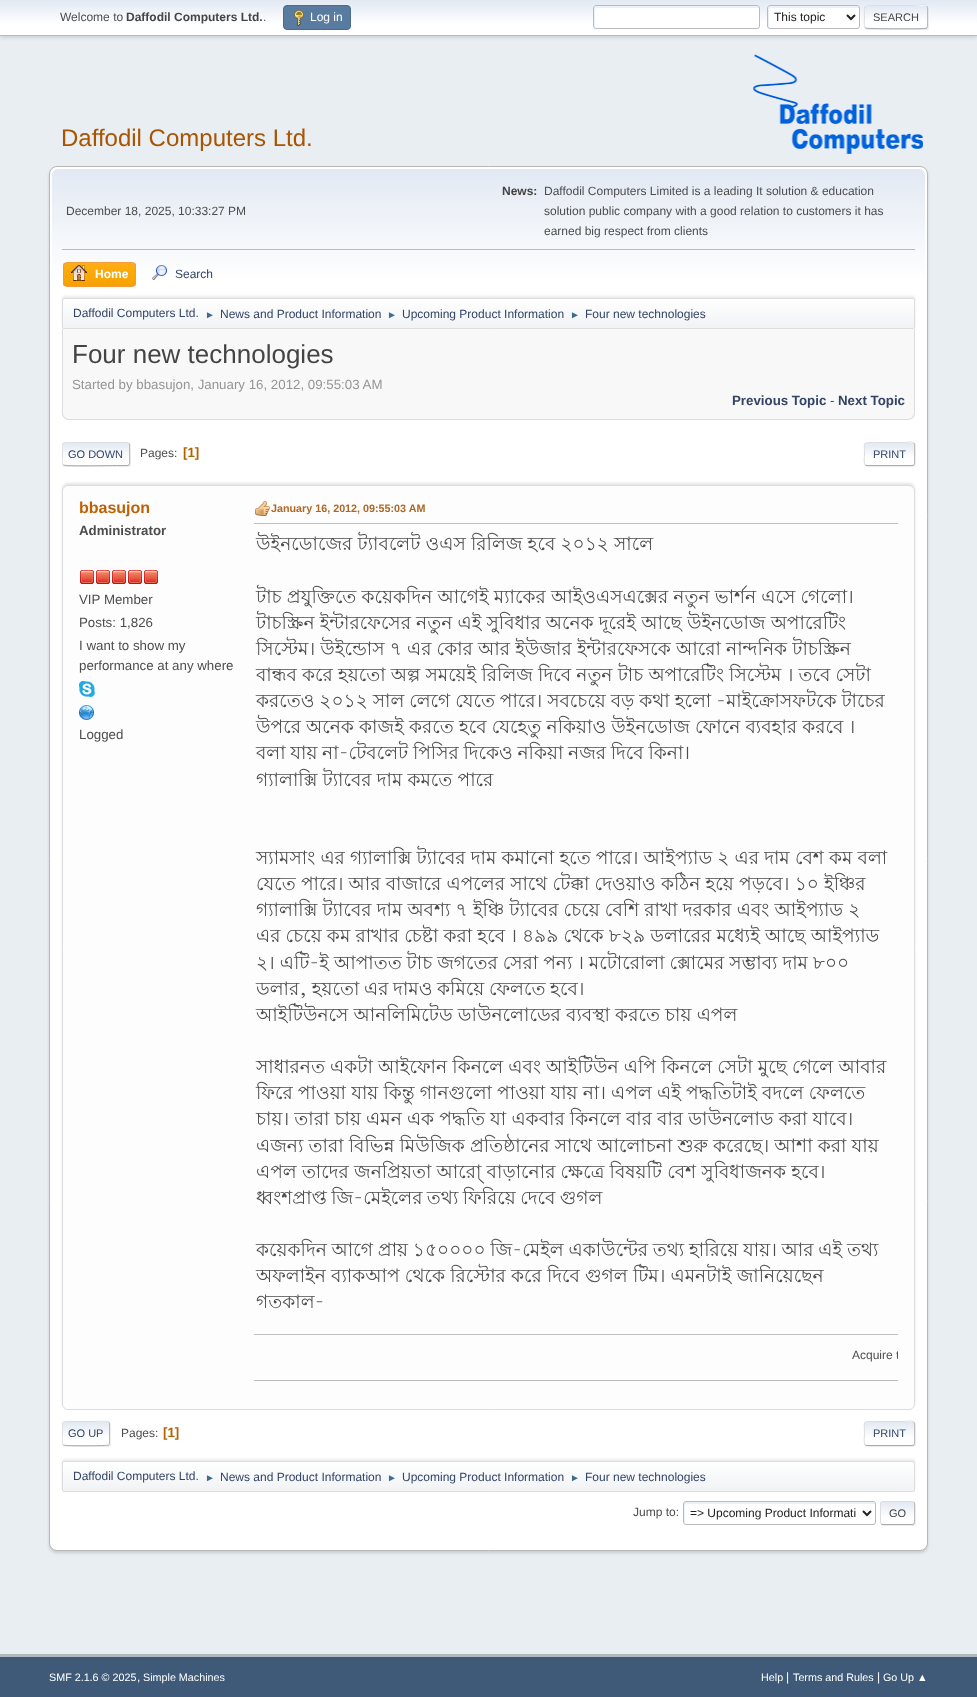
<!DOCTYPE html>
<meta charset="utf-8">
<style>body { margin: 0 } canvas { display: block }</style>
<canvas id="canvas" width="977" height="1697"></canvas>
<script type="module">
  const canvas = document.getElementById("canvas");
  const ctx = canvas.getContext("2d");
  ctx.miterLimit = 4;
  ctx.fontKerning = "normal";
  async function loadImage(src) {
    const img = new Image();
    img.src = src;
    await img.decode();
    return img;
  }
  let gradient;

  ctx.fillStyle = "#e9eef2";
  ctx.fillRect(0, 0, 977, 1697);
  ctx.fillStyle = "rgba(0, 0, 0, 0.16)";
  ctx.filter = "blur(2px)";
  ctx.beginPath();
  ctx.rect(0, 1, 977, 36);
  ctx.fill();
  ctx.filter = "none";
  gradient = ctx.createLinearGradient(489, 0, 489, 35);
  gradient.addColorStop(0, "#e2e9f3");
  gradient.addColorStop(0.7, "#ffffff");
  ctx.fillStyle = gradient;
  ctx.fillRect(0, 0, 977, 35);
  ctx.fillStyle = "#bbbbbb";
  ctx.fillRect(0, 35, 977, 1);
  ctx.font = "12px Liberation Sans";
  ctx.fillStyle = "#4d4d4d";
  ctx.fillText("Welcome to", 60, 21);
  ctx.font = "bold 12px Liberation Sans";
  ctx.fillStyle = "#444444";
  ctx.fillText("Daffodil Computers Ltd.", 126, 21);
  ctx.font = "12px Liberation Sans";
  ctx.fillStyle = "#4d4d4d";
  ctx.fillText(".", 263, 21);
  ctx.fillStyle = "#597b9f";
  ctx.beginPath();
  ctx.roundRect(283.5, 5.5, 67, 24, 3.5);
  ctx.fill();
  ctx.strokeStyle = "#4a6b8c";
  ctx.stroke();
  ctx.drawImage(await loadImage("img1.png"), 294, 10, 10, 16);
  ctx.fillStyle = "#ffffff";
  ctx.fillText("Log in", 310, 21);
  ctx.beginPath();
  ctx.roundRect(593, 5, 167, 24, 3);
  ctx.fill();
  ctx.fillStyle = "#ecf1f8";
  ctx.beginPath();
  ctx.moveTo(597, 8);
  ctx.lineTo(759, 8);
  ctx.lineTo(759, 7);
  ctx.lineTo(757, 6);
  ctx.lineTo(596, 6);
  ctx.bezierCurveTo(595, 6, 594, 7, 594, 8);
  ctx.bezierCurveTo(594, 11, 593, 27, 595, 28);
  ctx.lineTo(595, 10);
  ctx.bezierCurveTo(595, 9, 596, 8, 597, 8);
  ctx.closePath();
  ctx.fill();
  ctx.beginPath();
  ctx.roundRect(593.5, 5.5, 166, 23, 2.5);
  ctx.strokeStyle = "#bbbbbb";
  ctx.stroke();
  ctx.fillStyle = "#ffffff";
  ctx.beginPath();
  ctx.roundRect(767, 5, 93, 24, 3);
  ctx.fill();
  ctx.fillStyle = "#ecf1f8";
  ctx.beginPath();
  ctx.moveTo(771, 8);
  ctx.lineTo(859, 8);
  ctx.bezierCurveTo(859, 3, 847, 6, 842, 6);
  ctx.lineTo(784, 6);
  ctx.bezierCurveTo(766, 6, 768, 2, 768, 17);
  ctx.bezierCurveTo(768, 19, 767, 27, 769, 28);
  ctx.lineTo(769, 10);
  ctx.bezierCurveTo(769, 9, 770, 8, 771, 8);
  ctx.closePath();
  ctx.fill();
  ctx.beginPath();
  ctx.roundRect(767.5, 5.5, 92, 23, 2.5);
  ctx.stroke();
  ctx.beginPath();
  ctx.moveTo(847, 15);
  ctx.lineTo(851, 19);
  ctx.lineTo(855, 15);
  ctx.strokeStyle = "#222222";
  ctx.lineWidth = 2;
  ctx.stroke();
  ctx.fillStyle = "#222222";
  ctx.fillText("This topic", 774, 21);
  ctx.fillStyle = "rgba(221, 221, 221, 0.57)";
  ctx.filter = "blur(0.5px)";
  ctx.beginPath();
  ctx.roundRect(865, 6, 64, 24, 3);
  ctx.fill();
  ctx.filter = "none";
  ctx.save();
  ctx.beginPath();
  ctx.roundRect(864, 5, 64, 24, 3);
  ctx.clip();
  gradient = ctx.createLinearGradient(896, -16, 896, 6);
  gradient.addColorStop(0, "#e2e9f3");
  gradient.addColorStop(0.7, "#ffffff");
  ctx.fillStyle = gradient;
  ctx.fillRect(864, 5, 64, 1);
  gradient = ctx.createLinearGradient(896, 6, 896, 28);
  gradient.addColorStop(0, "#e2e9f3");
  gradient.addColorStop(0.7, "#ffffff");
  ctx.fillStyle = gradient;
  ctx.fillRect(864, 6, 64, 22);
  gradient = ctx.createLinearGradient(896, 28, 896, 50);
  gradient.addColorStop(0, "#e2e9f3");
  gradient.addColorStop(0.7, "#ffffff");
  ctx.fillStyle = gradient;
  ctx.fillRect(864, 28, 64, 1);
  ctx.restore();
  ctx.beginPath();
  ctx.moveTo(927, 6);
  ctx.bezierCurveTo(927, 6.5, 927.5, 7.5, 927.5, 8);
  ctx.lineTo(927.5, 26);
  ctx.bezierCurveTo(927.5, 26.5, 927, 27.5, 927, 28);
  ctx.strokeStyle = "#bbbbbb";
  ctx.lineWidth = 1;
  ctx.stroke();
  ctx.beginPath();
  ctx.moveTo(927, 28);
  ctx.lineTo(925, 28.5);
  ctx.bezierCurveTo(920, 29, 866.5, 29, 865.5, 28);
  ctx.lineTo(865, 28);
  ctx.strokeStyle = "#aaaaaa";
  ctx.stroke();
  ctx.beginPath();
  ctx.moveTo(865, 28);
  ctx.bezierCurveTo(863.5, 26, 864.5, 19, 864.5, 17);
  ctx.bezierCurveTo(864.5, 3.5, 862.5, 5.5, 876.5, 5.5);
  ctx.lineTo(915.5, 5.5);
  ctx.bezierCurveTo(919, 5.5, 924, 3.5, 927, 6);
  ctx.strokeStyle = "#dddddd";
  ctx.stroke();
  ctx.font = "11px Liberation Sans";
  ctx.fillStyle = "#444444";
  ctx.fillText("SEARCH", 873, 21);
  ctx.font = "24px Liberation Sans";
  ctx.fillStyle = "#a85400";
  ctx.fillText("Daffodil Computers Ltd.", 61, 146);
  ctx.drawImage(await loadImage("img2.png"), 753, 54, 170, 100);
  ctx.fillStyle = "rgba(0, 0, 0, 0.14)";
  ctx.filter = "blur(1.5px)";
  ctx.beginPath();
  ctx.roundRect(49, 168, 879, 1385, 8);
  ctx.fill();
  ctx.filter = "none";
  ctx.fillStyle = "#ffffff";
  ctx.beginPath();
  ctx.roundRect(49.5, 166.5, 878, 1384, 7.5);
  ctx.fill();
  ctx.strokeStyle = "#b8b8b8";
  ctx.stroke();
  gradient = ctx.createLinearGradient(489, 169, 489, 331);
  gradient.addColorStop(0, "#e2e9f3");
  gradient.addColorStop(0.7, "#ffffff");
  ctx.fillStyle = gradient;
  ctx.beginPath();
  ctx.roundRect(52, 169, 873, 162, [6, 6, 0, 0]);
  ctx.fill();
  ctx.fillStyle = "#bbbbbb";
  ctx.fillRect(62, 249, 853, 1);
  ctx.font = "12px Liberation Sans";
  ctx.fillStyle = "#4d4d4d";
  ctx.fillText("December 18, 2025, 10:33:27 PM", 66, 215);
  ctx.font = "bold 12px Liberation Sans";
  ctx.fillStyle = "#444444";
  ctx.fillText("News:", 502, 195);
  ctx.font = "12px Liberation Sans";
  ctx.fillStyle = "#4d4d4d";
  ctx.fillText("Daffodil Computers Limited is a leading It solution & education", 544, 195);
  ctx.fillText("solution public company with a good relation to customers it has", 544, 215);
  ctx.fillText("earned big respect from clients", 544, 235);
  ctx.save();
  ctx.beginPath();
  ctx.roundRect(63, 262, 73, 25, 4);
  ctx.clip();
  gradient = ctx.createLinearGradient(100, 263, 100, 286);
  gradient.addColorStop(0, "#ffae14");
  gradient.addColorStop(1, "#f5a100");
  ctx.fillStyle = gradient;
  ctx.fillRect(63, 263, 73, 23);
  ctx.restore();
  ctx.beginPath();
  ctx.roundRect(63.5, 262.5, 72, 24, 3.5);
  ctx.strokeStyle = "#f49a3a";
  ctx.stroke();
  ctx.drawImage(await loadImage("img3.png"), 71, 265, 16, 16);
  ctx.font = "bold 12px Liberation Sans";
  ctx.fillStyle = "#ffffff";
  ctx.fillText("Home", 95, 278);
  ctx.drawImage(await loadImage("img4.png"), 152, 265, 15, 15);
  ctx.font = "12px Liberation Sans";
  ctx.fillStyle = "#334466";
  ctx.fillText("Search", 175, 278);
  ctx.fillStyle = "rgba(0, 0, 0, 0.08)";
  ctx.filter = "blur(1px)";
  ctx.beginPath();
  ctx.roundRect(62, 296, 853, 31, 2);
  ctx.fill();
  ctx.filter = "none";
  ctx.save();
  ctx.beginPath();
  ctx.roundRect(62, 298, 853, 31, 2);
  ctx.clip();
  gradient = ctx.createLinearGradient(489, 299, 489, 328);
  gradient.addColorStop(0, "#ffffff");
  gradient.addColorStop(0.95, "#f1f3f5");
  ctx.fillStyle = gradient;
  ctx.fillRect(62, 299, 853, 29);
  ctx.restore();
  ctx.beginPath();
  ctx.roundRect(62.5, 298.5, 852, 30, 1.5);
  ctx.strokeStyle = "#dddddd";
  ctx.stroke();
  ctx.fillStyle = "#334466";
  ctx.fillText("Daffodil Computers Ltd.", 73, 317);
  ctx.font = "10px Liberation Sans";
  ctx.fillStyle = "#3f6b8c";
  ctx.fillText("►", 205, 318);
  ctx.font = "12px Liberation Sans";
  ctx.fillStyle = "#334466";
  ctx.fillText("News and Product Information", 220, 318);
  ctx.font = "10px Liberation Sans";
  ctx.fillStyle = "#3f6b8c";
  ctx.fillText("►", 387, 318);
  ctx.font = "12px Liberation Sans";
  ctx.fillStyle = "#334466";
  ctx.fillText("Upcoming Product Information", 402, 318);
  ctx.font = "10px Liberation Sans";
  ctx.fillStyle = "#3f6b8c";
  ctx.fillText("►", 570, 318);
  ctx.font = "12px Liberation Sans";
  ctx.fillStyle = "#334466";
  ctx.fillText("Four new technologies", 585, 318);
  ctx.fillStyle = "#f8f8f8";
  ctx.beginPath();
  ctx.roundRect(62, 329, 853, 91, [0, 0, 7, 7]);
  ctx.fill();
  ctx.fillStyle = "#dddddd";
  ctx.beginPath();
  ctx.moveTo(62, 329);
  ctx.lineTo(915, 329);
  ctx.lineTo(915, 413);
  ctx.bezierCurveTo(915, 417, 912, 420, 908, 420);
  ctx.lineTo(69, 420);
  ctx.bezierCurveTo(65, 420, 62, 417, 62, 413);
  ctx.closePath();
  ctx.moveTo(63, 329);
  ctx.lineTo(914, 329);
  ctx.lineTo(914, 413);
  ctx.bezierCurveTo(914, 416, 911, 419, 908, 419);
  ctx.lineTo(69, 419);
  ctx.bezierCurveTo(66, 419, 63, 416, 63, 413);
  ctx.closePath();
  ctx.fill("evenodd");
  ctx.font = "26px Liberation Sans";
  ctx.fillStyle = "#444444";
  ctx.fillText("Four new technologies", 72, 363);
  ctx.font = "13.3px Liberation Sans";
  ctx.fillStyle = "#959595";
  ctx.fillText("Started by bbasujon, January 16, 2012, 09:55:03 AM", 72, 389);
  ctx.font = "bold 13.3px Liberation Sans";
  ctx.fillStyle = "#334466";
  ctx.fillText("Previous Topic", 732, 405);
  ctx.font = "13.3px Liberation Sans";
  ctx.fillStyle = "#4d4d4d";
  ctx.fillText("-", 830, 405);
  ctx.font = "bold 13.3px Liberation Sans";
  ctx.fillStyle = "#334466";
  ctx.fillText("Next Topic", 838, 405);
  ctx.fillStyle = "rgba(221, 221, 221, 0.57)";
  ctx.filter = "blur(0.5px)";
  ctx.beginPath();
  ctx.roundRect(63, 443, 68, 24, 3);
  ctx.fill();
  ctx.filter = "none";
  ctx.save();
  ctx.beginPath();
  ctx.roundRect(62, 442, 68, 24, 3);
  ctx.clip();
  gradient = ctx.createLinearGradient(96, 443, 96, 465);
  gradient.addColorStop(0, "#e2e9f3");
  gradient.addColorStop(0.7, "#ffffff");
  ctx.fillStyle = gradient;
  ctx.fillRect(62, 443, 68, 22);
  gradient = ctx.createLinearGradient(96, 465, 96, 487);
  gradient.addColorStop(0, "#e2e9f3");
  gradient.addColorStop(0.7, "#ffffff");
  ctx.fillStyle = gradient;
  ctx.fillRect(62, 465, 68, 1);
  ctx.restore();
  ctx.beginPath();
  ctx.moveTo(129, 443);
  ctx.bezierCurveTo(129, 443.5, 129.5, 444.5, 129.5, 445);
  ctx.lineTo(129.5, 463);
  ctx.bezierCurveTo(129.5, 463.5, 129, 464.5, 129, 465);
  ctx.strokeStyle = "#bbbbbb";
  ctx.stroke();
  ctx.beginPath();
  ctx.moveTo(129, 465);
  ctx.lineTo(127, 465.5);
  ctx.lineTo(116.5, 465.5);
  ctx.bezierCurveTo(110.5, 465.5, 65.5, 466.5, 63.5, 465);
  ctx.lineTo(63, 465);
  ctx.strokeStyle = "#aaaaaa";
  ctx.stroke();
  ctx.save();
  ctx.beginPath();
  ctx.rect(62, 435, 853, 38);
  ctx.clip();
  ctx.beginPath();
  ctx.moveTo(63, 465);
  ctx.bezierCurveTo(61.5, 463, 62.5, 459, 62.5, 457);
  ctx.bezierCurveTo(62.5, 440.5, 59, 442.5, 75.5, 442.5);
  ctx.lineTo(127, 442.5);
  ctx.lineTo(129, 443);
  ctx.strokeStyle = "#dddddd";
  ctx.stroke();
  ctx.restore();
  ctx.font = "11px Liberation Sans";
  ctx.fillStyle = "#334466";
  ctx.fillText("GO DOWN", 68, 458);
  ctx.font = "12px Liberation Sans";
  ctx.fillStyle = "#4d4d4d";
  ctx.fillText("Pages:", 140, 457);
  ctx.font = "bold 13.3px Liberation Sans";
  ctx.fillStyle = "#b46100";
  ctx.fillText("[1]", 183, 457);
  ctx.save();
  ctx.beginPath();
  ctx.moveTo(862, 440);
  ctx.lineTo(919, 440);
  ctx.lineTo(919, 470);
  ctx.lineTo(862, 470);
  ctx.closePath();
  ctx.moveTo(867, 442);
  ctx.lineTo(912, 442);
  ctx.bezierCurveTo(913.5, 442, 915, 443.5, 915, 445);
  ctx.lineTo(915, 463);
  ctx.bezierCurveTo(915, 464.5, 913.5, 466, 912, 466);
  ctx.lineTo(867, 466);
  ctx.bezierCurveTo(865.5, 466, 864, 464.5, 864, 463);
  ctx.lineTo(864, 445);
  ctx.bezierCurveTo(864, 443.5, 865.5, 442, 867, 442);
  ctx.closePath();
  ctx.clip("evenodd");
  ctx.fillStyle = "rgba(221, 221, 221, 0.57)";
  ctx.filter = "blur(0.5px)";
  ctx.beginPath();
  ctx.roundRect(865, 443, 51, 24, 3);
  ctx.fill();
  ctx.filter = "none";
  ctx.restore();
  ctx.fillStyle = "#ffffff";
  ctx.beginPath();
  ctx.roundRect(864, 442, 51, 24, 3);
  ctx.fill();
  ctx.save();
  ctx.beginPath();
  ctx.roundRect(864, 442, 51, 24, 3);
  ctx.clip();
  gradient = ctx.createLinearGradient(890, 443, 890, 465);
  gradient.addColorStop(0, "#e2e9f3");
  gradient.addColorStop(0.7, "#ffffff");
  ctx.fillStyle = gradient;
  ctx.fillRect(864, 443, 51, 22);
  ctx.restore();
  ctx.beginPath();
  ctx.moveTo(914, 443);
  ctx.bezierCurveTo(914, 443.5, 914.5, 444.5, 914.5, 445);
  ctx.lineTo(914.5, 463);
  ctx.bezierCurveTo(914.5, 463.5, 914, 464.5, 914, 465);
  ctx.strokeStyle = "#bbbbbb";
  ctx.stroke();
  ctx.beginPath();
  ctx.moveTo(914, 465);
  ctx.lineTo(912, 465.5);
  ctx.lineTo(867, 465.5);
  ctx.lineTo(865, 465);
  ctx.strokeStyle = "#aaaaaa";
  ctx.stroke();
  ctx.beginPath();
  ctx.moveTo(865, 465);
  ctx.bezierCurveTo(863.5, 463, 864.5, 456, 864.5, 454);
  ctx.bezierCurveTo(864.5, 441.5, 862, 442.5, 874.5, 442.5);
  ctx.lineTo(904.5, 442.5);
  ctx.bezierCurveTo(907.5, 442.5, 911.5, 441, 914, 443);
  ctx.strokeStyle = "#dddddd";
  ctx.stroke();
  ctx.font = "11px Liberation Sans";
  ctx.fillStyle = "#334466";
  ctx.fillText("PRINT", 873, 458);
  ctx.fillStyle = "rgba(0, 0, 0, 0.1)";
  ctx.filter = "blur(1px)";
  ctx.beginPath();
  ctx.roundRect(62, 483, 853, 925, 6);
  ctx.fill();
  ctx.filter = "none";
  ctx.fillStyle = "#fdfdfd";
  ctx.beginPath();
  ctx.roundRect(62.5, 485.5, 852, 924, 5.5);
  ctx.fill();
  ctx.stroke();
  ctx.font = "bold 16px Liberation Sans";
  ctx.fillStyle = "#c06002";
  ctx.fillText("bbasujon", 79, 513);
  ctx.font = "bold 13.3px Liberation Sans";
  ctx.fillStyle = "#4d4d4d";
  ctx.fillText("Administrator", 79, 535);
  ctx.drawImage(await loadImage("img5.png"), 80, 570, 14, 14);
  ctx.drawImage(await loadImage("img5.png"), 96, 570, 14, 14);
  ctx.drawImage(await loadImage("img5.png"), 112, 570, 14, 14);
  ctx.drawImage(await loadImage("img5.png"), 128, 570, 14, 14);
  ctx.drawImage(await loadImage("img5.png"), 144, 570, 14, 14);
  ctx.font = "13.3px Liberation Sans";
  ctx.fillText("VIP Member", 79, 604);
  ctx.fillText("Posts: 1,826", 79, 627);
  ctx.fillText("I want to show my", 79, 650);
  ctx.fillText("performance at any where", 79, 670);
  ctx.drawImage(await loadImage("img6.png"), 79, 681, 16, 16);
  ctx.drawImage(await loadImage("img7.png"), 79, 705, 15, 15);
  ctx.fillText("Logged", 79, 739);
  ctx.drawImage(await loadImage("img8.png"), 255, 501, 15, 15);
  ctx.font = "bold 10.75px Liberation Sans";
  ctx.fillStyle = "#ad6825";
  ctx.fillText("January 16, 2012, 09:55:03 AM", 271, 512);
  ctx.fillStyle = "#bfbfbf";
  ctx.fillRect(254, 523, 644, 1);
  ctx.font = "18.65px Lohit Bengali";
  ctx.fillStyle = "#4d4d4d";
  ctx.fillText("উইনডোজের ট্যাবলেট ওএস রিলিজ হবে ২০১২ সালে", 256, 550);
  ctx.fillText("টাচ প্রযুক্তিতে কয়েকদিন আগেই ম্যাকের আইওএসএক্সের নতুন ভার্শন এসে গেলো।", 256, 603);
  ctx.fillText("টাচস্ক্রিন ইন্টারফেসের নতুন এই সুবিধার অনেক দূরেই আছে উইনডোজ অপারেটিং", 256, 629);
  ctx.fillText("সিস্টেম। উইন্ডোস ৭ এর কোর আর ইউজার ইন্টারফেসকে আরো নান্দনিক টাচস্ক্রিন", 256, 655);
  ctx.fillText("বান্ধব করে হয়তো অল্প সময়েই রিলিজ দিবে নতুন টাচ অপারেটিং সিস্টেম । তবে সেটা", 256, 681);
  ctx.wordSpacing = "-0.3px";
  ctx.fillText("করতেও ২০১২ সাল লেগে যেতে পারে। সবচেয়ে বড় কথা হলো -মাইক্রোসফটকে টাচের", 256, 707);
  ctx.wordSpacing = "0px";
  ctx.fillText("উপরে অনেক কাজই করতে হবে যেহেতু নকিয়াও উইনডোজ ফোনে ব্যবহার করবে ।", 256, 733);
  ctx.wordSpacing = "-0.5px";
  ctx.fillText("বলা যায় না-টেবলেট পিসির দিকেও নকিয়া নজর দিবে কিনা।", 256, 759);
  ctx.wordSpacing = "0px";
  ctx.fillText("গ্যালাক্সি ট্যাবের দাম কমতে পারে", 256, 786);
  ctx.fillText("স্যামসাং এর গ্যালাক্সি ট্যাবের দাম কমানো হতে পারে। আইপ্যাড ২ এর দাম বেশ কম বলা", 256, 864);
  ctx.fillText("যেতে পারে। আর বাজারে এপলের সাথে টেক্কা দেওয়াও কঠিন হয়ে পড়বে। ১০ ইঞ্চির", 256, 890);
  ctx.fillText("গ্যালাক্সি ট্যাবের দাম অবশ্য ৭ ইঞ্চি ট্যাবের চেয়ে বেশি রাখা দরকার এবং আইপ্যাড ২", 256, 916);
  ctx.fillText("এর চেয়ে কম রাখার চেষ্টা করা হবে । ৪৯৯ থেকে ৮২৯ ডলারের মধ্যেই আছে আইপ্যাড", 256, 942);
  ctx.wordSpacing = "-0.25px";
  ctx.fillText("২। এটি-ই আপাতত টাচ জগতের সেরা পন্য । মটোরোলা ক্সোমের সম্ভাব্য দাম ৮০০", 256, 969);
  ctx.wordSpacing = "-0.5px";
  ctx.fillText("ডলার, হয়তো এর দামও কমিয়ে ফেলতে হবে।", 256, 995);
  ctx.wordSpacing = "0px";
  ctx.fillText("আইটিউনসে আনলিমিটেড ডাউনলোডের ব্যবস্থা করতে চায় এপল", 256, 1021);
  ctx.fillText("সাধারনত একটা আইফোন কিনলে এবং আইটিউন এপি কিনলে সেটা মুছে গেলে আবার", 256, 1073);
  ctx.fillText("ফিরে পাওয়া যায় কিন্তু গানগুলো পাওয়া যায় না। এপল এই পদ্ধতিটাই বদলে ফেলতে", 256, 1099);
  ctx.fillText("চায়। তারা চায় এমন এক পদ্ধতি যা একবার কিনলে বার বার ডাউনলোড করা যাবে।", 256, 1125);
  ctx.fillText("এজন্য তারা বিভিন্ন মিউজিক প্রতিষ্ঠানের সাথে আলোচনা শুরু করেছে। আশা করা যায়", 256, 1152);
  ctx.fillText("এপল তাদের জনপ্রিয়তা আরো্ বাড়ানোর ক্ষেত্রে বিষয়টি বেশ সুবিধাজনক হবে।", 256, 1178);
  ctx.wordSpacing = "-0.75px";
  ctx.fillText("ধ্বংশপ্রাপ্ত জি-মেইলের তথ্য ফিরিয়ে দেবে গুগল", 256, 1204);
  ctx.wordSpacing = "-0.4px";
  ctx.fillText("কয়েকদিন আগে প্রায় ১৫০০০০ জি-মেইল একাউন্টের তথ্য হারিয়ে যায়। আর এই তথ্য", 256, 1256);
  ctx.wordSpacing = "0px";
  ctx.fillText("অফলাইন ব্যাকআপ থেকে রিস্টোর করে দিবে গুগল টিম। এমনটাই জানিয়েছেন", 256, 1282);
  ctx.fillText("গতকাল-", 256, 1308);
  ctx.fillStyle = "#bfbfbf";
  ctx.fillRect(254, 1334, 644, 1);
  ctx.save();
  ctx.beginPath();
  ctx.rect(254, 1347, 644, 16);
  ctx.clip();
  ctx.font = "12px Liberation Sans";
  ctx.fillStyle = "#4d4d4d";
  ctx.fillText("Acquire t", 852, 1359);
  ctx.restore();
  ctx.fillStyle = "#bbbbbb";
  ctx.fillRect(254, 1380, 644, 1);
  ctx.fillStyle = "rgba(221, 221, 221, 0.57)";
  ctx.filter = "blur(0.5px)";
  ctx.beginPath();
  ctx.roundRect(63, 1422, 48, 25, 3);
  ctx.fill();
  ctx.filter = "none";
  ctx.fillStyle = "#ffffff";
  ctx.beginPath();
  ctx.roundRect(62, 1421, 48, 25, 3);
  ctx.fill();
  ctx.save();
  ctx.beginPath();
  ctx.roundRect(62, 1421, 48, 25, 3);
  ctx.clip();
  gradient = ctx.createLinearGradient(86, 1422, 86, 1445);
  gradient.addColorStop(0, "#e2e9f3");
  gradient.addColorStop(0.7, "#ffffff");
  ctx.fillStyle = gradient;
  ctx.fillRect(62, 1422, 48, 23);
  ctx.restore();
  ctx.beginPath();
  ctx.moveTo(109, 1422);
  ctx.bezierCurveTo(109, 1422.5, 109.5, 1423.5, 109.5, 1424);
  ctx.lineTo(109.5, 1443);
  ctx.bezierCurveTo(109.5, 1443.5, 109, 1444.5, 109, 1445);
  ctx.strokeStyle = "#bbbbbb";
  ctx.stroke();
  ctx.beginPath();
  ctx.moveTo(109, 1445);
  ctx.bezierCurveTo(107.5, 1446, 64.5, 1446, 63, 1445);
  ctx.strokeStyle = "#aaaaaa";
  ctx.stroke();
  ctx.save();
  ctx.beginPath();
  ctx.rect(62, 1414, 853, 39);
  ctx.clip();
  ctx.beginPath();
  ctx.moveTo(63, 1445);
  ctx.bezierCurveTo(61.5, 1443, 62.5, 1436, 62.5, 1433.5);
  ctx.bezierCurveTo(62.5, 1421, 60, 1421.5, 72, 1421.5);
  ctx.lineTo(93, 1421.5);
  ctx.bezierCurveTo(95.5, 1421.5, 107, 1420.5, 109, 1422);
  ctx.strokeStyle = "#dddddd";
  ctx.stroke();
  ctx.restore();
  ctx.font = "11px Liberation Sans";
  ctx.fillStyle = "#334466";
  ctx.fillText("GO UP", 68, 1437);
  ctx.font = "12px Liberation Sans";
  ctx.fillStyle = "#4d4d4d";
  ctx.fillText("Pages:", 121, 1437);
  ctx.font = "bold 13.3px Liberation Sans";
  ctx.fillStyle = "#b46100";
  ctx.fillText("[1]", 163, 1437);
  ctx.save();
  ctx.beginPath();
  ctx.moveTo(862, 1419);
  ctx.lineTo(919, 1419);
  ctx.lineTo(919, 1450);
  ctx.lineTo(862, 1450);
  ctx.closePath();
  ctx.moveTo(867, 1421);
  ctx.lineTo(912, 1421);
  ctx.bezierCurveTo(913.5, 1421, 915, 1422.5, 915, 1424);
  ctx.lineTo(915, 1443);
  ctx.bezierCurveTo(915, 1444.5, 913.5, 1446, 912, 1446);
  ctx.lineTo(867, 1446);
  ctx.bezierCurveTo(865.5, 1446, 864, 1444.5, 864, 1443);
  ctx.lineTo(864, 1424);
  ctx.bezierCurveTo(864, 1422.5, 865.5, 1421, 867, 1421);
  ctx.closePath();
  ctx.clip("evenodd");
  ctx.fillStyle = "rgba(221, 221, 221, 0.57)";
  ctx.filter = "blur(0.5px)";
  ctx.beginPath();
  ctx.roundRect(865, 1422, 51, 25, 3);
  ctx.fill();
  ctx.filter = "none";
  ctx.restore();
  ctx.fillStyle = "#ffffff";
  ctx.beginPath();
  ctx.roundRect(864, 1421, 51, 25, 3);
  ctx.fill();
  ctx.save();
  ctx.beginPath();
  ctx.roundRect(864, 1421, 51, 25, 3);
  ctx.clip();
  gradient = ctx.createLinearGradient(890, 1422, 890, 1445);
  gradient.addColorStop(0, "#e2e9f3");
  gradient.addColorStop(0.7, "#ffffff");
  ctx.fillStyle = gradient;
  ctx.fillRect(864, 1422, 51, 23);
  ctx.restore();
  ctx.beginPath();
  ctx.moveTo(914, 1422);
  ctx.bezierCurveTo(914, 1422.5, 914.5, 1423.5, 914.5, 1424);
  ctx.lineTo(914.5, 1443);
  ctx.bezierCurveTo(914.5, 1443.5, 914, 1444.5, 914, 1445);
  ctx.strokeStyle = "#bbbbbb";
  ctx.stroke();
  ctx.beginPath();
  ctx.moveTo(914, 1445);
  ctx.lineTo(912, 1445.5);
  ctx.lineTo(867, 1445.5);
  ctx.lineTo(865, 1445);
  ctx.strokeStyle = "#aaaaaa";
  ctx.stroke();
  ctx.beginPath();
  ctx.moveTo(865, 1445);
  ctx.bezierCurveTo(863.5, 1443, 864.5, 1436, 864.5, 1433.5);
  ctx.bezierCurveTo(864.5, 1420.5, 862, 1421.5, 874.5, 1421.5);
  ctx.lineTo(904.5, 1421.5);
  ctx.bezierCurveTo(907.5, 1421.5, 911.5, 1420, 914, 1422);
  ctx.strokeStyle = "#dddddd";
  ctx.stroke();
  ctx.font = "11px Liberation Sans";
  ctx.fillStyle = "#334466";
  ctx.fillText("PRINT", 873, 1437);
  ctx.fillStyle = "rgba(0, 0, 0, 0.08)";
  ctx.filter = "blur(1px)";
  ctx.beginPath();
  ctx.roundRect(62, 1459, 853, 31, 2);
  ctx.fill();
  ctx.filter = "none";
  ctx.save();
  ctx.beginPath();
  ctx.roundRect(62, 1461, 853, 31, 2);
  ctx.clip();
  gradient = ctx.createLinearGradient(489, 1462, 489, 1491);
  gradient.addColorStop(0, "#ffffff");
  gradient.addColorStop(0.95, "#f1f3f5");
  ctx.fillStyle = gradient;
  ctx.fillRect(62, 1462, 853, 29);
  ctx.restore();
  ctx.beginPath();
  ctx.roundRect(62.5, 1461.5, 852, 30, 1.5);
  ctx.stroke();
  ctx.font = "12px Liberation Sans";
  ctx.fillStyle = "#334466";
  ctx.fillText("Daffodil Computers Ltd.", 73, 1480);
  ctx.font = "10px Liberation Sans";
  ctx.fillStyle = "#3f6b8c";
  ctx.fillText("►", 205, 1481);
  ctx.font = "12px Liberation Sans";
  ctx.fillStyle = "#334466";
  ctx.fillText("News and Product Information", 220, 1481);
  ctx.font = "10px Liberation Sans";
  ctx.fillStyle = "#3f6b8c";
  ctx.fillText("►", 387, 1481);
  ctx.font = "12px Liberation Sans";
  ctx.fillStyle = "#334466";
  ctx.fillText("Upcoming Product Information", 402, 1481);
  ctx.font = "10px Liberation Sans";
  ctx.fillStyle = "#3f6b8c";
  ctx.fillText("►", 570, 1481);
  ctx.font = "12px Liberation Sans";
  ctx.fillStyle = "#334466";
  ctx.fillText("Four new technologies", 585, 1481);
  ctx.fillStyle = "#4d4d4d";
  ctx.fillText("Jump to:", 633, 1516);
  ctx.fillStyle = "#ecf1f8";
  ctx.beginPath();
  ctx.moveTo(687, 1504);
  ctx.lineTo(875, 1504);
  ctx.bezierCurveTo(875, 1503, 874, 1502, 873, 1502);
  ctx.lineTo(686, 1502);
  ctx.bezierCurveTo(685, 1502, 684, 1503, 684, 1504);
  ctx.lineTo(684, 1522);
  ctx.bezierCurveTo(684, 1523, 684, 1523, 685, 1524);
  ctx.lineTo(685, 1506);
  ctx.bezierCurveTo(685, 1505, 686, 1504, 687, 1504);
  ctx.closePath();
  ctx.fill();
  ctx.beginPath();
  ctx.roundRect(683.5, 1501.5, 192, 23, 2.5);
  ctx.strokeStyle = "#bbbbbb";
  ctx.stroke();
  ctx.beginPath();
  ctx.moveTo(863, 1511);
  ctx.lineTo(867, 1515);
  ctx.lineTo(871, 1511);
  ctx.strokeStyle = "#222222";
  ctx.lineWidth = 2;
  ctx.stroke();
  ctx.fillStyle = "#222222";
  ctx.fillText("=> Upcoming Product Informati", 690, 1517);
  ctx.fillStyle = "rgba(221, 221, 221, 0.57)";
  ctx.filter = "blur(0.5px)";
  ctx.beginPath();
  ctx.roundRect(881, 1502, 35, 24, 3);
  ctx.fill();
  ctx.filter = "none";
  ctx.save();
  ctx.beginPath();
  ctx.roundRect(880, 1501, 35, 24, 3);
  ctx.clip();
  gradient = ctx.createLinearGradient(898, 1502, 898, 1524);
  gradient.addColorStop(0, "#e2e9f3");
  gradient.addColorStop(0.7, "#ffffff");
  ctx.fillStyle = gradient;
  ctx.fillRect(880, 1502, 35, 22);
  ctx.restore();
  ctx.beginPath();
  ctx.moveTo(914, 1502);
  ctx.bezierCurveTo(914, 1502.5, 914.5, 1503.5, 914.5, 1504);
  ctx.lineTo(914.5, 1522);
  ctx.bezierCurveTo(914.5, 1522.5, 914, 1523.5, 914, 1524);
  ctx.strokeStyle = "#bbbbbb";
  ctx.lineWidth = 1;
  ctx.stroke();
  ctx.beginPath();
  ctx.moveTo(914, 1524);
  ctx.bezierCurveTo(913.5, 1524, 912.5, 1524.5, 912, 1524.5);
  ctx.lineTo(883, 1524.5);
  ctx.bezierCurveTo(882.5, 1524.5, 881.5, 1524, 881, 1524);
  ctx.strokeStyle = "#aaaaaa";
  ctx.stroke();
  ctx.beginPath();
  ctx.moveTo(881, 1524);
  ctx.bezierCurveTo(881, 1523.5, 880.5, 1522.5, 880.5, 1522);
  ctx.lineTo(880.5, 1504);
  ctx.bezierCurveTo(880.5, 1503.5, 881, 1502.5, 881, 1502);
  ctx.bezierCurveTo(881.5, 1502, 882.5, 1501.5, 883, 1501.5);
  ctx.lineTo(912, 1501.5);
  ctx.bezierCurveTo(912.5, 1501.5, 913.5, 1502, 914, 1502);
  ctx.strokeStyle = "#dddddd";
  ctx.stroke();
  ctx.font = "11px Liberation Sans";
  ctx.fillStyle = "#444444";
  ctx.fillText("GO", 889, 1517);
  ctx.fillStyle = "#3e5a78";
  ctx.fillRect(0, 1657, 977, 40);
  ctx.fillStyle = "#b2b6bd";
  ctx.fillRect(0, 1654, 977, 3);
  ctx.font = "10.75px Liberation Sans";
  ctx.fillStyle = "#ffffff";
  ctx.fillText("SMF 2.1.6 © 2025", 49, 1681);
  ctx.font = "12px Liberation Sans";
  ctx.fillText(",", 137, 1681);
  ctx.font = "10.75px Liberation Sans";
  ctx.fillText("Simple Machines", 143, 1681);
  ctx.fillText("Help", 761, 1681);
  ctx.font = "12px Liberation Sans";
  ctx.fillText("|", 786, 1681);
  ctx.font = "10.75px Liberation Sans";
  ctx.fillText("Terms and Rules", 793, 1681);
  ctx.font = "12px Liberation Sans";
  ctx.fillText("|", 877, 1681);
  ctx.font = "10.75px Liberation Sans";
  ctx.fillText("Go Up ▲", 883, 1681);
</script>
